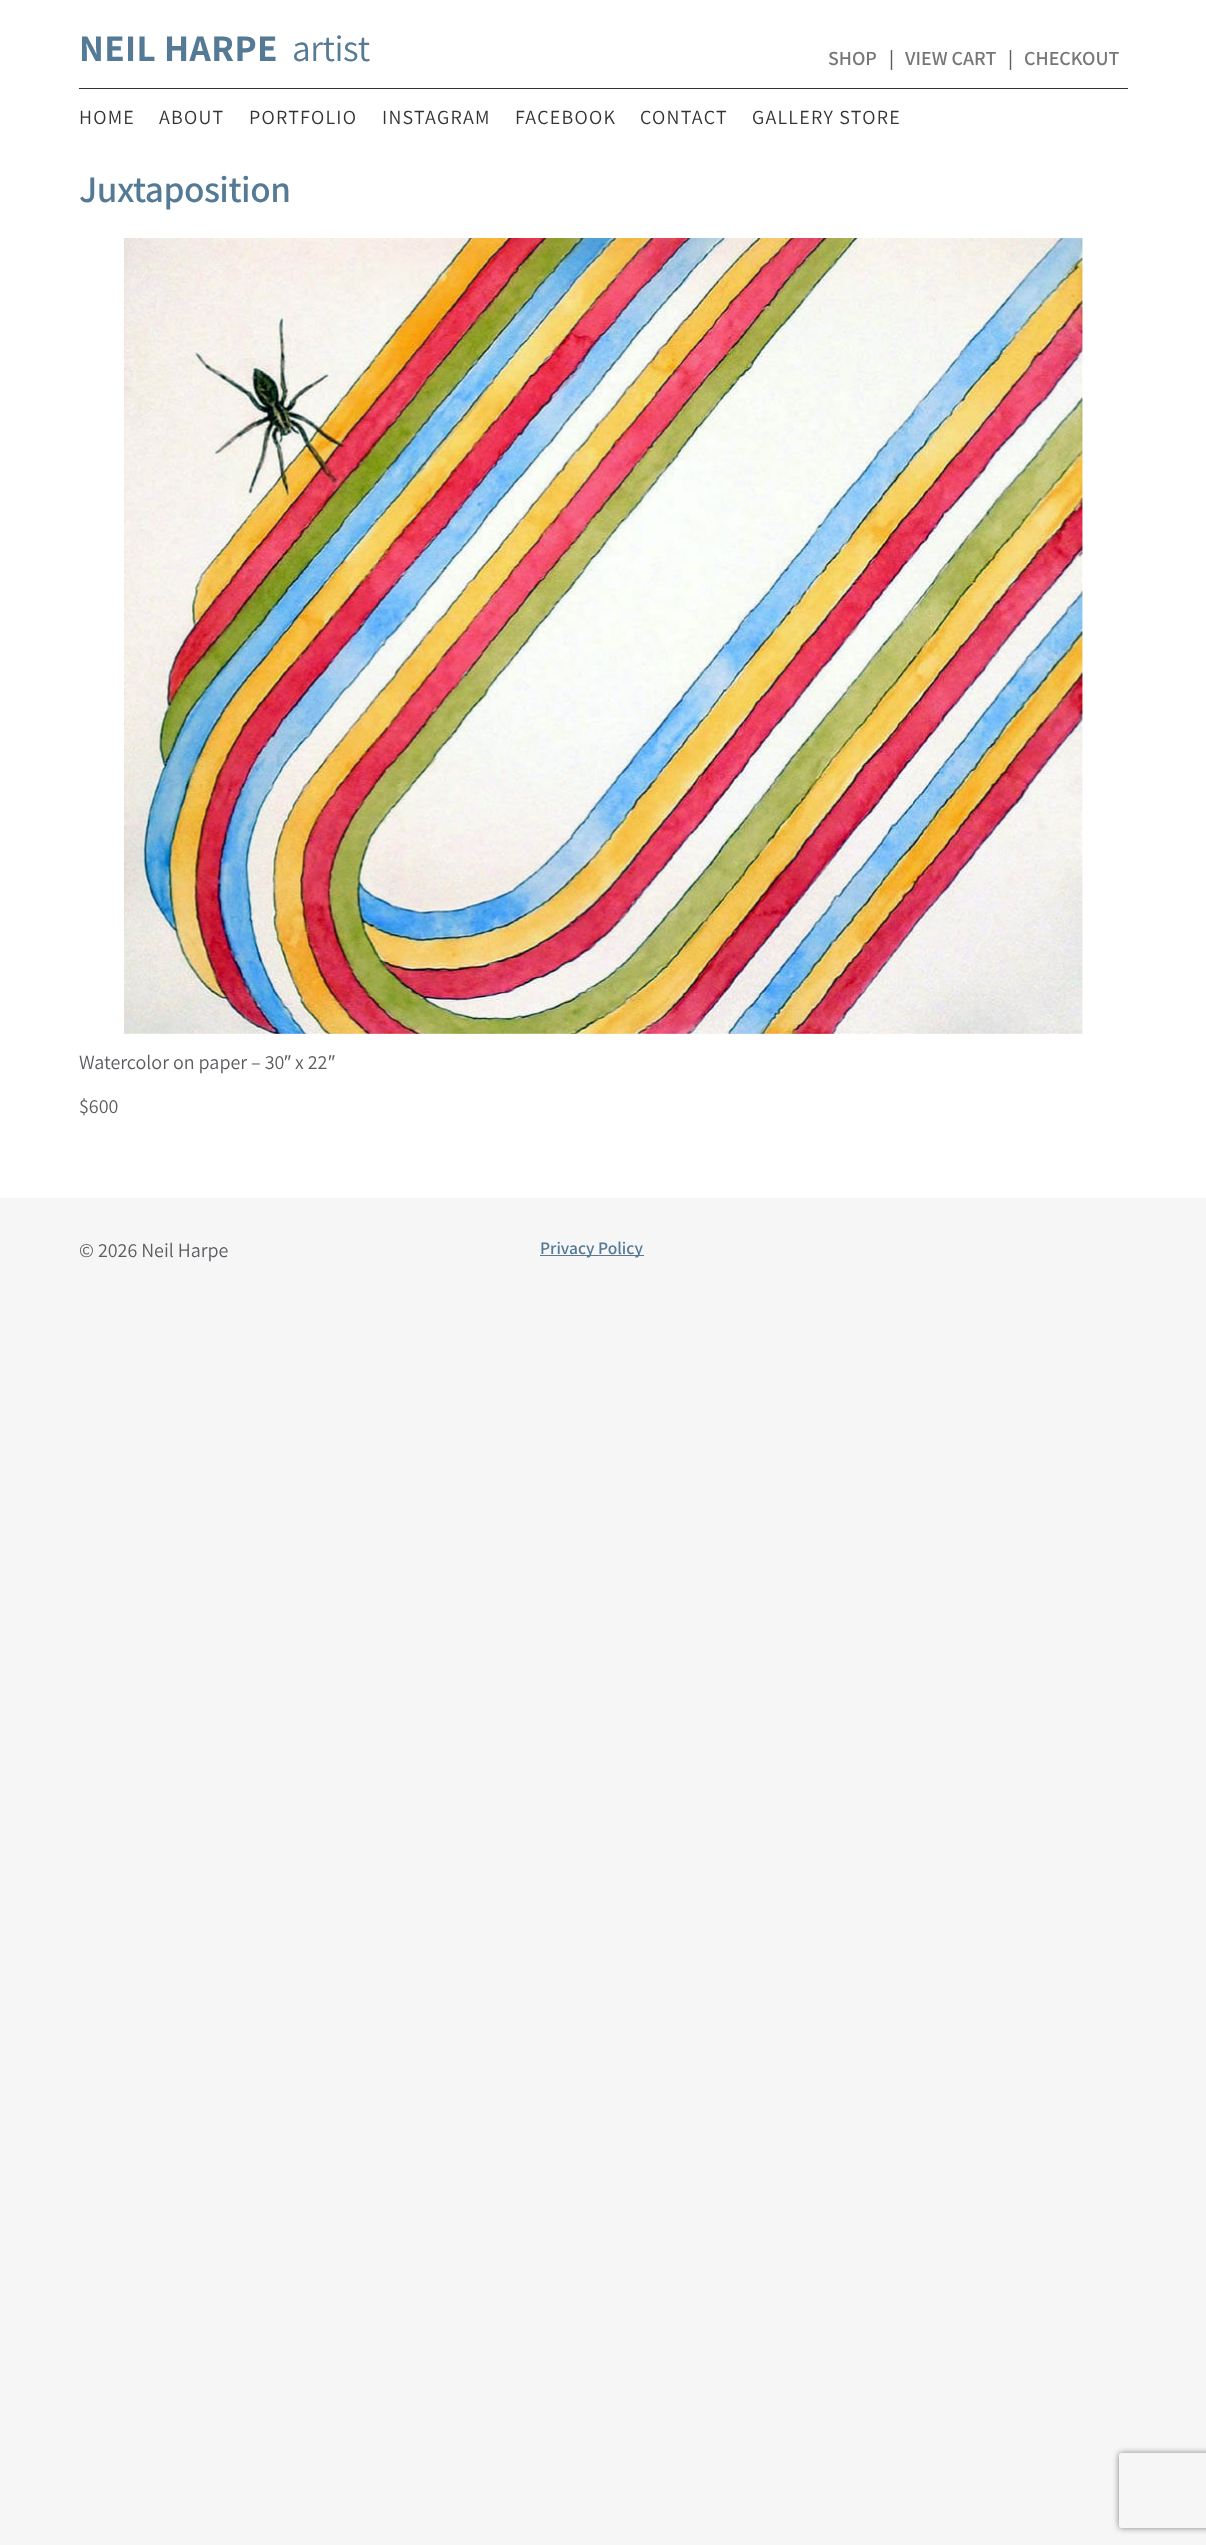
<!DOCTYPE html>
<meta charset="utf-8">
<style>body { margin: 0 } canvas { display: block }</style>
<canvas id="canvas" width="1206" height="2545"></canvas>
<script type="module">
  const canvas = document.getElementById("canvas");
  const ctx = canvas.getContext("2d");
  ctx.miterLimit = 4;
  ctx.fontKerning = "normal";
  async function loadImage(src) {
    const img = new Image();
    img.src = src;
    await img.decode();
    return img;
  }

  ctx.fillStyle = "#f6f6f6";
  ctx.fillRect(0, 0, 1206, 2545);
  ctx.fillStyle = "#ffffff";
  ctx.fillRect(0, 0, 1206, 1198);
  ctx.letterSpacing = "0.4px";
  ctx.font = "bold 37.5px Assistant";
  ctx.fillStyle = "#557a95";
  ctx.fillText("NEIL HARPE", 79, 61);
  ctx.letterSpacing = "-0.5px";
  ctx.font = "37.5px Assistant";
  ctx.fillText("artist", 292, 61);
  ctx.letterSpacing = "0px";
  ctx.font = "600 20px Assistant";
  ctx.fillStyle = "#777777";
  ctx.fillText("SHOP", 828, 65);
  ctx.fillStyle = "#5d5c61";
  ctx.fillText("|", 889, 65);
  ctx.fillStyle = "#777777";
  ctx.fillText("VIEW CART", 905, 65);
  ctx.fillStyle = "#5d5c61";
  ctx.fillText("|", 1008, 65);
  ctx.fillStyle = "#777777";
  ctx.fillText("CHECKOUT", 1024, 65);
  ctx.fillStyle = "#333333";
  ctx.fillRect(79, 88, 1049, 1);
  ctx.letterSpacing = "1.25px";
  ctx.font = "20px Assistant";
  ctx.fillText("HOME", 79, 124);
  ctx.fillText("ABOUT", 159, 124);
  ctx.fillText("PORTFOLIO", 249, 124);
  ctx.fillText("INSTAGRAM", 382, 124);
  ctx.fillText("FACEBOOK", 515, 124);
  ctx.fillText("CONTACT", 640, 124);
  ctx.fillText("GALLERY STORE", 752, 124);
  ctx.letterSpacing = "-0.5px";
  ctx.font = "600 37.5px Assistant";
  ctx.fillStyle = "#557a95";
  ctx.fillText("Juxtaposition", 79, 202);
  ctx.drawImage(await loadImage("img1.png"), 124, 238, 959, 796);
  ctx.letterSpacing = "0px";
  ctx.font = "20px Assistant";
  ctx.fillStyle = "#5d5c61";
  ctx.fillText("Watercolor on paper – 30", 79, 1069);
  ctx.font = "20px Liberation Sans";
  ctx.fillText("″", 284, 1069);
  ctx.font = "20px Assistant";
  ctx.fillText("x 22", 295, 1069);
  ctx.font = "20px Liberation Sans";
  ctx.fillText("″", 328, 1069);
  ctx.font = "20px Assistant";
  ctx.fillText("$600", 79, 1113);
  ctx.fillText("© 2026 Neil Harpe", 79, 1257);
  ctx.fillStyle = "#557a95";
  ctx.fillRect(540, 1255, 104, 1);
  ctx.font = "600 17.5px Assistant";
  ctx.fillText("Privacy Policy", 540, 1254);
  ctx.save();
  ctx.beginPath();
  ctx.moveTo(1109, 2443);
  ctx.lineTo(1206, 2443);
  ctx.lineTo(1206, 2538);
  ctx.lineTo(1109, 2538);
  ctx.closePath();
  ctx.moveTo(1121.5, 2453);
  ctx.lineTo(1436.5, 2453);
  ctx.bezierCurveTo(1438, 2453, 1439, 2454, 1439, 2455.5);
  ctx.lineTo(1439, 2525.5);
  ctx.bezierCurveTo(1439, 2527, 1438, 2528, 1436.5, 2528);
  ctx.lineTo(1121.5, 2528);
  ctx.bezierCurveTo(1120, 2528, 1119, 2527, 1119, 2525.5);
  ctx.lineTo(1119, 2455.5);
  ctx.bezierCurveTo(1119, 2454, 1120, 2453, 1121.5, 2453);
  ctx.closePath();
  ctx.clip("evenodd");
  ctx.fillStyle = "#808080";
  ctx.filter = "blur(3px)";
  ctx.beginPath();
  ctx.roundRect(1119, 2453, 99, 75, 2.5);
  ctx.fill();
  ctx.filter = "none";
  ctx.restore();
</script>
